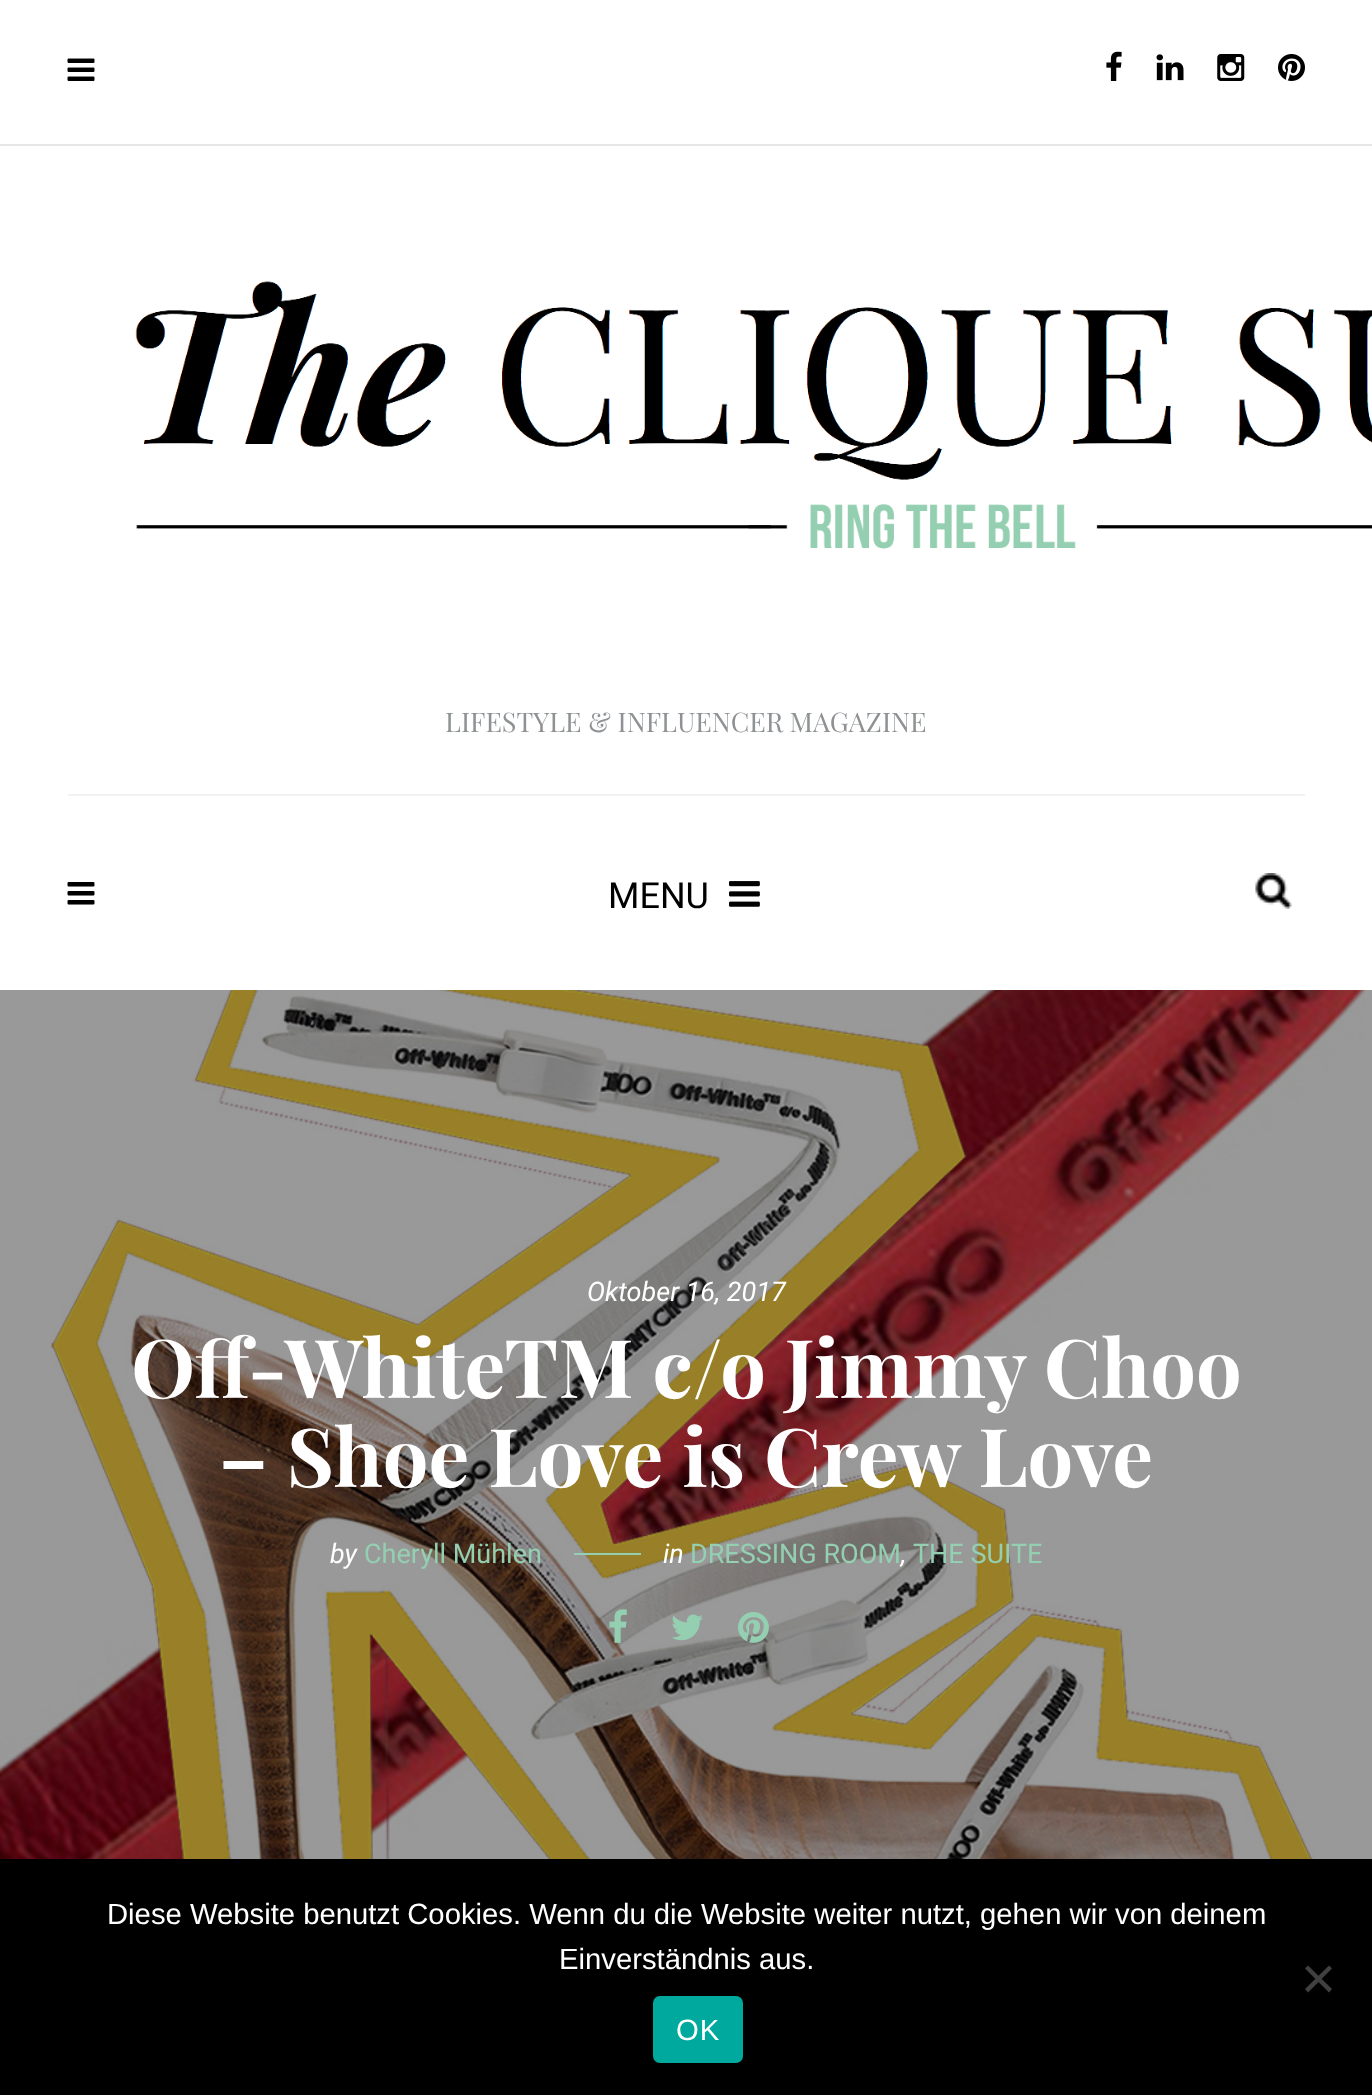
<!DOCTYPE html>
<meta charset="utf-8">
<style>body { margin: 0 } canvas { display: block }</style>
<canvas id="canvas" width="1372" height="2095"></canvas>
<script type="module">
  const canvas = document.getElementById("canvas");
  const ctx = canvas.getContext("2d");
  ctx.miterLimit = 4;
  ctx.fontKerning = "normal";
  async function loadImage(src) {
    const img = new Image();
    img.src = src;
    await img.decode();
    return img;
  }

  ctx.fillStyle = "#ffffff";
  ctx.fillRect(0, 0, 1372, 2095);
  ctx.fillStyle = "#999999";
  ctx.fillRect(1366, 990, 6, 869);
  ctx.fillStyle = "#e6e6e6";
  ctx.fillRect(0, 144, 1372, 2);
  ctx.drawImage(await loadImage("img1.png"), 67, 58, 28, 23);
  ctx.drawImage(await loadImage("img2.png"), 1106, 51, 16, 30);
  ctx.drawImage(await loadImage("img3.png"), 1156, 54, 28, 27);
  ctx.drawImage(await loadImage("img4.png"), 1217, 54, 28, 27);
  ctx.drawImage(await loadImage("img5.png"), 1278, 54, 27, 27);
  ctx.drawImage(await loadImage("img6.png"), 135, 281, 1237, 268);
  ctx.font = "27px Playfair Display";
  ctx.fillStyle = "#8f9294";
  ctx.fillText("LIFESTYLE & INFLUENCER MAGAZINE", 445, 732);
  ctx.fillStyle = "#f2f2f2";
  ctx.fillRect(68, 794, 1237, 2);
  ctx.drawImage(await loadImage("img7.png"), 67, 882, 28, 23);
  ctx.font = "36px Roboto";
  ctx.fillStyle = "#000000";
  ctx.fillText("MENU", 608, 908);
  ctx.drawImage(await loadImage("img8.png"), 729, 881, 31, 26);
  ctx.drawImage(await loadImage("img9.png"), 1255, 873, 37, 36);
  ctx.drawImage(await loadImage("img10.png"), 0, 990, 1366, 869);
  ctx.font = "italic 27px Roboto";
  ctx.fillStyle = "#ffffff";
  ctx.fillText("Oktober 16, 2017", 587, 1301);
  ctx.font = "bold 81px Playfair Display";
  ctx.fillText("Off-WhiteTM c/o Jimmy Choo", 131, 1398);
  ctx.fillText("– Shoe Love is Crew Love", 219, 1487);
  ctx.font = "italic 27px Roboto";
  ctx.fillText("by", 330, 1563);
  ctx.font = "27px Roboto";
  ctx.fillStyle = "#94cfb1";
  ctx.fillText("Cheryll Mühlen", 364, 1563);
  ctx.fillRect(574, 1553, 67, 2);
  ctx.font = "italic 27px Roboto";
  ctx.fillStyle = "#ffffff";
  ctx.fillText("in", 663, 1563);
  ctx.font = "27px Roboto";
  ctx.fillStyle = "#94cfb1";
  ctx.fillText("DRESSING ROOM", 690, 1563);
  ctx.fillText("THE SUITE", 913, 1563);
  ctx.font = "italic 27px Roboto";
  ctx.fillStyle = "#ffffff";
  ctx.fillText(",", 901, 1563);
  ctx.drawImage(await loadImage("img11.png"), 609, 1609, 18, 34);
  ctx.drawImage(await loadImage("img12.png"), 671, 1614, 32, 27);
  ctx.drawImage(await loadImage("img13.png"), 738, 1612, 31, 31);
  ctx.fillStyle = "#000000";
  ctx.fillRect(0, 1859, 1372, 236);
  ctx.font = "29.25px Liberation Sans";
  ctx.fillStyle = "#ffffff";
  ctx.fillText("Diese Website benutzt Cookies. Wenn du die Website weiter nutzt, gehen wir von deinem", 107, 1924);
  ctx.fillText("Einverständnis aus.", 559, 1969);
  ctx.fillStyle = "#404040";
  ctx.beginPath();
  ctx.moveTo(1329, 1965.5);
  ctx.lineTo(1332, 1968.5);
  ctx.lineTo(1308, 1992.5);
  ctx.lineTo(1305, 1989);
  ctx.closePath();
  ctx.fill();
  ctx.beginPath();
  ctx.moveTo(1305, 1968.5);
  ctx.lineTo(1308, 1965.5);
  ctx.lineTo(1332, 1989);
  ctx.lineTo(1329, 1992.5);
  ctx.closePath();
  ctx.fill();
  ctx.fillStyle = "#00a99d";
  ctx.beginPath();
  ctx.roundRect(653, 1996, 90, 67, 7);
  ctx.fill();
  ctx.letterSpacing = "1px";
  ctx.fillStyle = "#ffffff";
  ctx.fillText("OK", 676, 2040);
</script>
